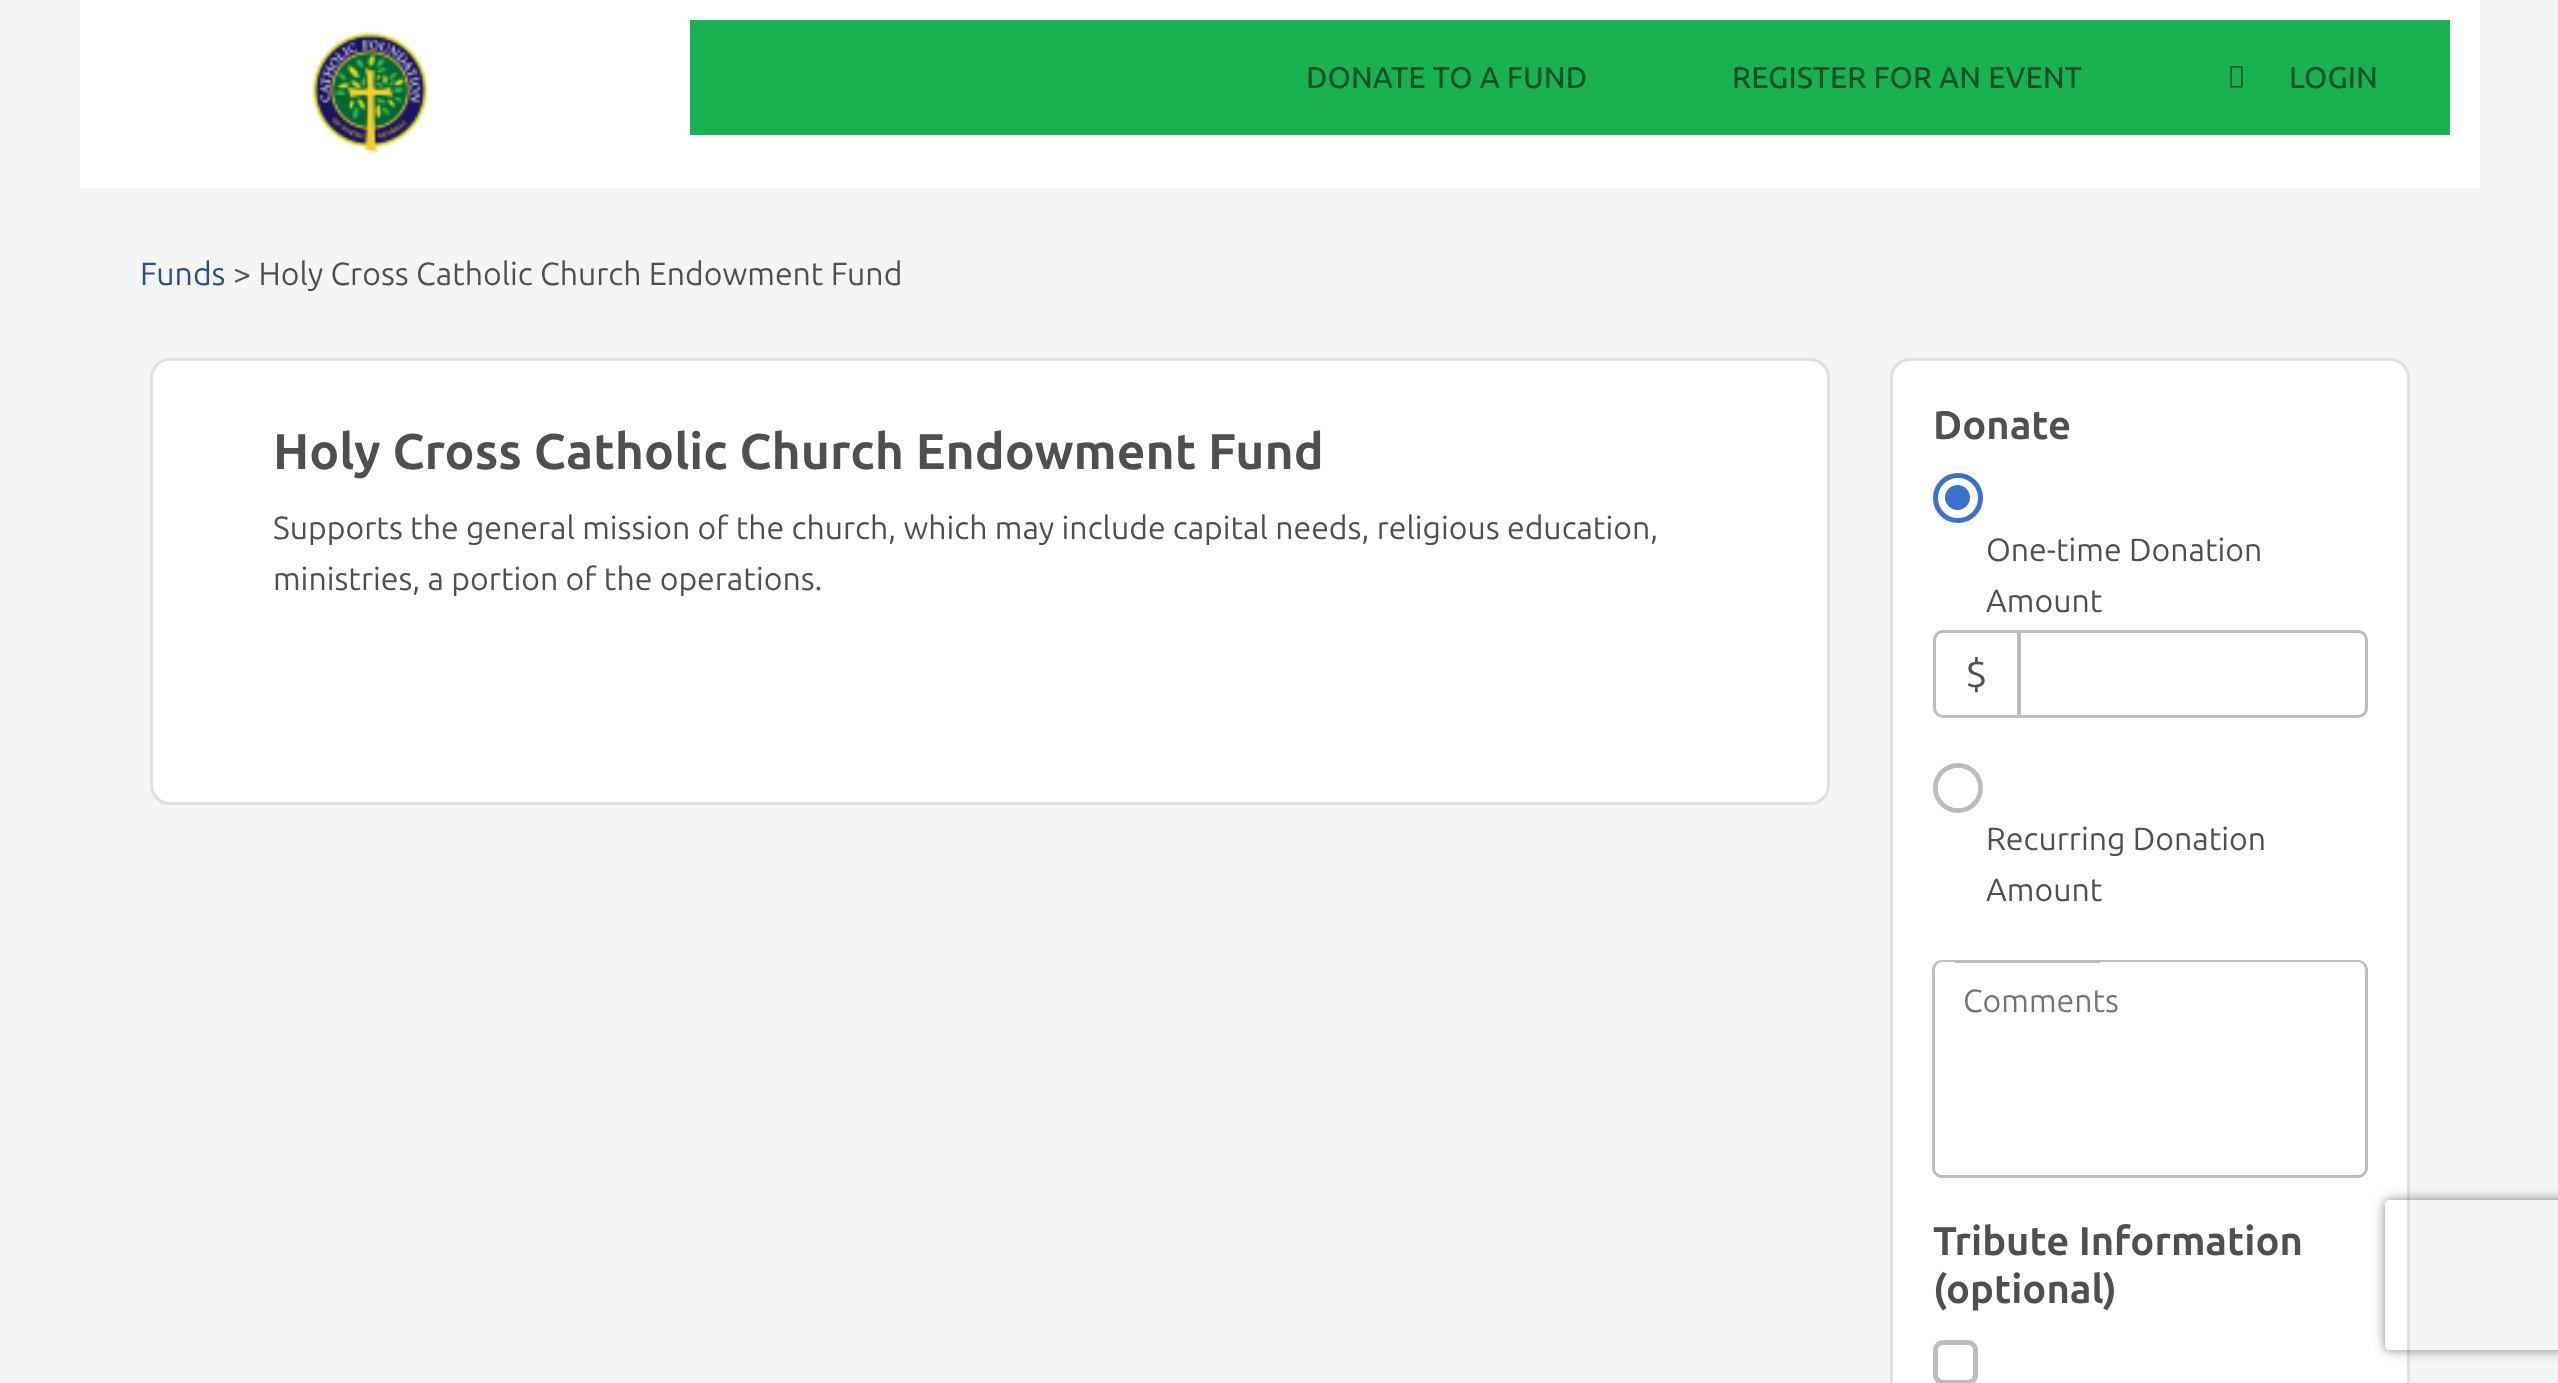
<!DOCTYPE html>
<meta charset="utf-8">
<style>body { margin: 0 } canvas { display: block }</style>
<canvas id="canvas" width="2558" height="1383"></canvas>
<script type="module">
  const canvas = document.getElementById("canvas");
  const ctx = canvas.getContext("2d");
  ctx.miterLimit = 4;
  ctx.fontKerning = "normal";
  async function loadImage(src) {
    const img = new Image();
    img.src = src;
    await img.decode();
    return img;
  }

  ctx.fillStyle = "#f5f5f5";
  ctx.fillRect(0, 0, 2558, 1383);
  ctx.fillStyle = "#ffffff";
  ctx.fillRect(80, 0, 2400, 188);
  ctx.drawImage(await loadImage("img1.png"), 311, 31, 118, 123);
  ctx.fillStyle = "#19b250";
  ctx.fillRect(690, 20, 1760, 115);
  ctx.font = "500 30px Ubuntu";
  ctx.fillStyle = "#0b5024";
  ctx.fillText("DONATE TO A FUND", 1306, 88);
  ctx.fillText("REGISTER FOR AN EVENT", 1732, 88);
  ctx.drawImage(await loadImage("img2.png"), 2230, 66, 13, 22);
  ctx.fillText("LOGIN", 2289, 88);
  ctx.font = "32px Ubuntu";
  ctx.fillStyle = "#274f91";
  ctx.fillText("Funds", 140, 285);
  ctx.fillStyle = "#4f4f4f";
  ctx.fillText("> Holy Cross Catholic Church Endowment Fund", 233, 285);
  ctx.fillStyle = "#ffffff";
  ctx.beginPath();
  ctx.roundRect(151.5, 359.5, 1677, 444, 18.5);
  ctx.fill();
  ctx.strokeStyle = "#e0e0e0";
  ctx.lineWidth = 3;
  ctx.stroke();
  ctx.font = "bold 50px Ubuntu";
  ctx.fillStyle = "#4f4f4f";
  ctx.fillText("Holy Cross Catholic Church Endowment Fund", 273, 469);
  ctx.font = "32px Ubuntu";
  ctx.fillText("Supports the general mission of the church, which may include capital needs, religious education,", 273, 539);
  ctx.fillText("ministries, a portion of the operations.", 273, 590);
  ctx.fillStyle = "#ffffff";
  ctx.beginPath();
  ctx.roundRect(1891.5, 359.5, 517, 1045, 18.5);
  ctx.fill();
  ctx.stroke();
  ctx.font = "bold 40px Ubuntu";
  ctx.fillStyle = "#4f4f4f";
  ctx.fillText("Donate", 1933, 439);
  ctx.beginPath();
  ctx.arc(1958, 498, 22.5, 0, Math.PI * 2);
  ctx.strokeStyle = "#3b71ca";
  ctx.lineWidth = 5;
  ctx.stroke();
  ctx.fillStyle = "#3b71ca";
  ctx.beginPath();
  ctx.arc(1957.5, 497.5, 12.5, 0, Math.PI * 2);
  ctx.fill();
  ctx.font = "32px Ubuntu";
  ctx.fillStyle = "#4f4f4f";
  ctx.fillText("One-time Donation", 1986, 561);
  ctx.fillText("Amount", 1986, 612);
  ctx.beginPath();
  ctx.roundRect(1934.5, 631.5, 84, 85, [8.5, 0, 0, 8.5]);
  ctx.strokeStyle = "#bdbdbd";
  ctx.lineWidth = 3;
  ctx.stroke();
  ctx.font = "40px Ubuntu";
  ctx.fillText("$", 1965, 688);
  ctx.beginPath();
  ctx.roundRect(2019.5, 631.5, 347, 85, [0, 8.5, 8.5, 0]);
  ctx.stroke();
  ctx.beginPath();
  ctx.arc(1958, 788, 22.5, 0, Math.PI * 2);
  ctx.lineWidth = 5;
  ctx.stroke();
  ctx.fillStyle = "#ffffff";
  ctx.beginPath();
  ctx.arc(1958, 788, 20, 0, Math.PI * 2);
  ctx.fill();
  ctx.font = "32px Ubuntu";
  ctx.fillStyle = "#4f4f4f";
  ctx.fillText("Recurring Donation", 1986, 850);
  ctx.fillText("Amount", 1986, 901);
  ctx.fillStyle = "#bdbdbd";
  ctx.beginPath();
  ctx.moveTo(1942, 960);
  ctx.lineTo(1955, 960);
  ctx.lineTo(1955, 1178);
  ctx.lineTo(1942, 1178);
  ctx.bezierCurveTo(1937, 1178, 1932, 1173, 1932, 1168);
  ctx.lineTo(1932, 970);
  ctx.bezierCurveTo(1932, 964, 1937, 960, 1942, 960);
  ctx.closePath();
  ctx.moveTo(1942, 962);
  ctx.lineTo(1955, 962);
  ctx.lineTo(1955, 1175);
  ctx.lineTo(1942, 1175);
  ctx.bezierCurveTo(1938, 1175, 1935, 1172, 1935, 1168);
  ctx.lineTo(1935, 970);
  ctx.bezierCurveTo(1935, 966, 1938, 962, 1942, 962);
  ctx.closePath();
  ctx.fill("evenodd");
  ctx.fillRect(1955, 960, 145, 3);
  ctx.fillRect(1955, 1175, 145, 3);
  ctx.fillStyle = "#757575";
  ctx.fillText("Comments", 1963, 1012);
  ctx.fillStyle = "#bdbdbd";
  ctx.beginPath();
  ctx.moveTo(2100, 960);
  ctx.lineTo(2358, 960);
  ctx.bezierCurveTo(2363, 960, 2368, 964, 2368, 970);
  ctx.lineTo(2368, 1168);
  ctx.bezierCurveTo(2368, 1173, 2363, 1178, 2358, 1178);
  ctx.lineTo(2100, 1178);
  ctx.closePath();
  ctx.moveTo(2100, 962);
  ctx.lineTo(2358, 962);
  ctx.bezierCurveTo(2362, 962, 2365, 966, 2365, 970);
  ctx.lineTo(2365, 1168);
  ctx.bezierCurveTo(2365, 1172, 2362, 1175, 2358, 1175);
  ctx.lineTo(2100, 1175);
  ctx.closePath();
  ctx.fill("evenodd");
  ctx.font = "bold 40px Ubuntu";
  ctx.fillStyle = "#4f4f4f";
  ctx.fillText("Tribute Information", 1933, 1255);
  ctx.fillText("(optional)", 1933, 1303);
  ctx.beginPath();
  ctx.roundRect(1935.5, 1342.5, 40, 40, 7.5);
  ctx.stroke();
  ctx.save();
  ctx.beginPath();
  ctx.moveTo(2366, 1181);
  ctx.lineTo(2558, 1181);
  ctx.lineTo(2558, 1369);
  ctx.lineTo(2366, 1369);
  ctx.closePath();
  ctx.moveTo(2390, 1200);
  ctx.lineTo(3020, 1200);
  ctx.bezierCurveTo(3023, 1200, 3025, 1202, 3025, 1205);
  ctx.lineTo(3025, 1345);
  ctx.bezierCurveTo(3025, 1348, 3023, 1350, 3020, 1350);
  ctx.lineTo(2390, 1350);
  ctx.bezierCurveTo(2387, 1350, 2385, 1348, 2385, 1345);
  ctx.lineTo(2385, 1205);
  ctx.bezierCurveTo(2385, 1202, 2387, 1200, 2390, 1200);
  ctx.closePath();
  ctx.clip("evenodd");
  ctx.fillStyle = "#808080";
  ctx.filter = "blur(6px)";
  ctx.beginPath();
  ctx.roundRect(2385, 1200, 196, 150, 5);
  ctx.fill();
  ctx.filter = "none";
  ctx.restore();
</script>
